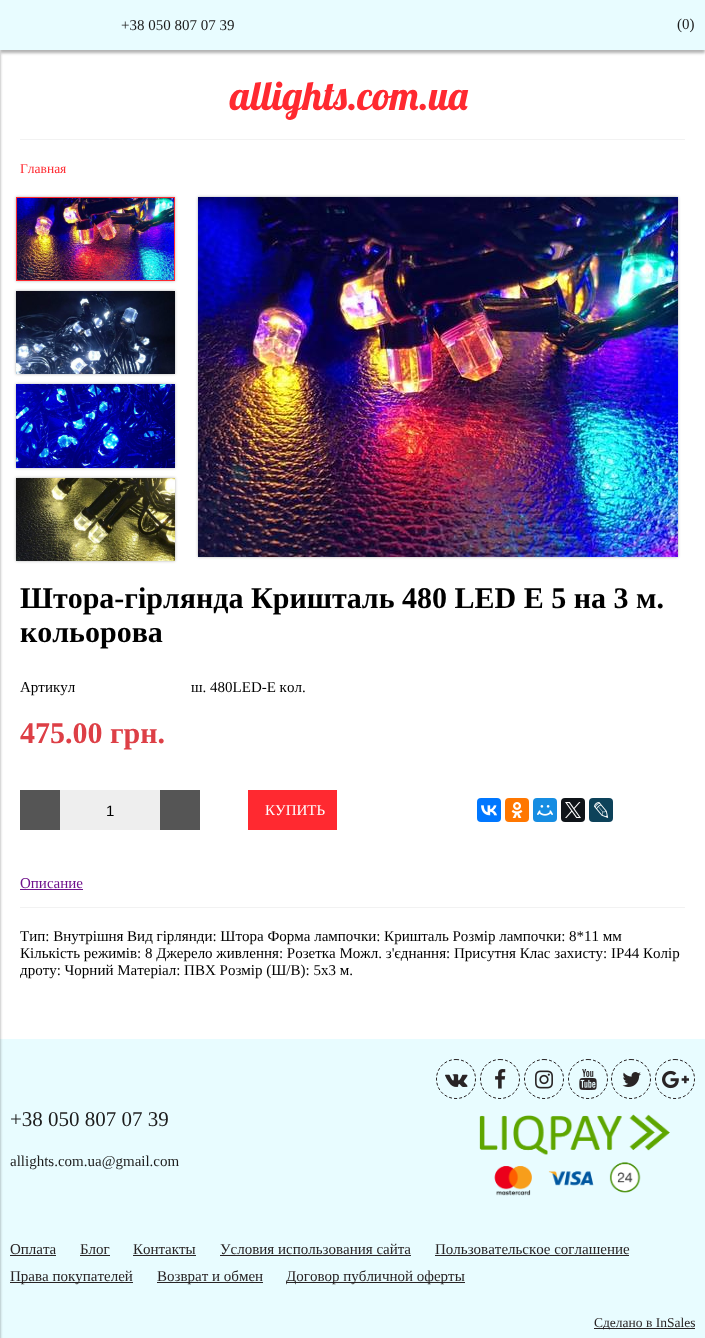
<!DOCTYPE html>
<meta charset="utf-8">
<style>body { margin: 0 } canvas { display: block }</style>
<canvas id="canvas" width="705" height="1338"></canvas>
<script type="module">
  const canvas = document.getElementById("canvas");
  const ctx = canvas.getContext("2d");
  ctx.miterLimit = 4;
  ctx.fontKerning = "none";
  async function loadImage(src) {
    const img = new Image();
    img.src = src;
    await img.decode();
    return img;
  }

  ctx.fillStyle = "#ffffff";
  ctx.fillRect(0, 0, 705, 1338);
  ctx.fillStyle = "rgba(0, 0, 0, 0.3)";
  ctx.filter = "blur(1.5px)";
  ctx.beginPath();
  ctx.rect(0, 3, 705, 50);
  ctx.fill();
  ctx.filter = "none";
  ctx.fillStyle = "#e8fcff";
  ctx.fillRect(0, 0, 705, 50);
  ctx.font = "15px Liberation Serif";
  ctx.fillStyle = "#1c1c1c";
  ctx.fillText("+38 050 807 07 39", 121, 30);
  ctx.fillText("(0)", 677, 29);
  ctx.fillStyle = "#e8fcff";
  ctx.fillRect(0, 1039, 705, 299);
  ctx.fillStyle = "rgba(0, 0, 0, 0.4)";
  ctx.filter = "blur(1.5px)";
  ctx.beginPath();
  ctx.rect(-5, 53, 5, 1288);
  ctx.fill();
  ctx.filter = "none";
  ctx.font = "40px Lobster";
  ctx.fillStyle = "#ff2930";
  ctx.fillText("allights.com.ua", 230, 110);
  ctx.fillStyle = "#f2f2f2";
  ctx.fillRect(20, 139, 665, 1);
  ctx.font = "13.5px Liberation Serif";
  ctx.fillStyle = "#ff2930";
  ctx.fillText("Главная", 20, 173);
  ctx.fillStyle = "rgba(0, 0, 0, 0.3)";
  ctx.filter = "blur(1.5px)";
  ctx.beginPath();
  ctx.rect(16, 197, 159, 84);
  ctx.fill();
  ctx.filter = "none";
  ctx.strokeStyle = "#ff2930";
  ctx.strokeRect(16.5, 197.5, 158, 83);
  ctx.drawImage(await loadImage("img1.png"), 17, 198, 157, 82);
  ctx.filter = "blur(1.5px)";
  ctx.beginPath();
  ctx.rect(16, 291, 159, 83);
  ctx.fill();
  ctx.filter = "none";
  ctx.drawImage(await loadImage("img2.png"), 16, 291, 159, 83);
  ctx.filter = "blur(1.5px)";
  ctx.beginPath();
  ctx.rect(16, 384, 159, 84);
  ctx.fill();
  ctx.filter = "none";
  ctx.drawImage(await loadImage("img3.png"), 16, 384, 159, 84);
  ctx.filter = "blur(1.5px)";
  ctx.beginPath();
  ctx.rect(16, 478, 159, 83);
  ctx.fill();
  ctx.filter = "none";
  ctx.drawImage(await loadImage("img4.png"), 16, 478, 159, 83);
  ctx.filter = "blur(1.5px)";
  ctx.beginPath();
  ctx.rect(198, 197, 480, 360);
  ctx.fill();
  ctx.filter = "none";
  ctx.drawImage(await loadImage("img5.png"), 198, 197, 480, 360);
  ctx.font = "bold 30px Liberation Serif";
  ctx.fillStyle = "#000000";
  ctx.fillText("Штора-гірлянда Кришталь 480 LED E 5 на 3 м.", 20, 608);
  ctx.fillText("кольорова", 20, 642);
  ctx.font = "15px Liberation Serif";
  ctx.fillText("Артикул", 20, 692);
  ctx.fillText("ш. 480LED-E кол.", 191, 692);
  ctx.font = "bold 30px Liberation Serif";
  ctx.fillStyle = "#dd3f46";
  ctx.fillText("475.00 грн.", 20, 743);
  ctx.fillStyle = "#555555";
  ctx.fillRect(20, 790, 40, 40);
  ctx.fillStyle = "#eeeeee";
  ctx.fillRect(60, 790, 100, 40);
  ctx.font = "15px Liberation Sans";
  ctx.fillStyle = "#000000";
  ctx.fillText("1", 106, 816);
  ctx.fillStyle = "#555555";
  ctx.fillRect(160, 790, 40, 40);
  ctx.fillStyle = "#ff2930";
  ctx.fillRect(248, 790, 89, 40);
  ctx.font = "15px Liberation Serif";
  ctx.fillStyle = "#ffffff";
  ctx.fillText("КУПИТЬ", 265, 815);
  ctx.fillStyle = "#0077ff";
  ctx.beginPath();
  ctx.roundRect(477, 798, 24, 24, 4);
  ctx.fill();
  ctx.drawImage(await loadImage("img6.png"), 481, 805, 16, 11);
  ctx.fillStyle = "#ff7700";
  ctx.beginPath();
  ctx.roundRect(505, 798, 24, 24, 4);
  ctx.fill();
  ctx.drawImage(await loadImage("img7.png"), 511, 802, 12, 16);
  ctx.fillStyle = "#168de2";
  ctx.beginPath();
  ctx.roundRect(533, 798, 24, 24, 4);
  ctx.fill();
  ctx.drawImage(await loadImage("img8.png"), 537, 805, 16, 11);
  ctx.fillStyle = "#0f1419";
  ctx.beginPath();
  ctx.roundRect(561, 798, 24, 24, 4);
  ctx.fill();
  ctx.drawImage(await loadImage("img9.png"), 565, 802, 16, 16);
  ctx.fillStyle = "#0d425a";
  ctx.beginPath();
  ctx.roundRect(589, 798, 24, 24, 4);
  ctx.fill();
  ctx.drawImage(await loadImage("img10.png"), 594, 802, 15, 16);
  ctx.fillStyle = "#f2f2f2";
  ctx.fillRect(20, 907, 665, 1);
  ctx.fillStyle = "#70128c";
  ctx.fillText("Описание", 20, 888);
  ctx.fillRect(20, 889, 63, 1);
  ctx.fillStyle = "#000000";
  ctx.fillText("Тип: Внутрішня Вид гірлянди: Штора Форма лампочки: Кришталь Розмір лампочки: 8*11 мм", 20, 941);
  ctx.fillText("Кількість режимів: 8 Джерело живлення: Розетка Можл. з'єднання: Присутня Клас захисту: IP44 Колір", 20, 958);
  ctx.fillText("дроту: Чорний Матеріал: ПВХ Розмір (Ш/В): 5х3 м.", 20, 975);
  ctx.font = "21px Liberation Serif";
  ctx.fillStyle = "#1c1c1c";
  ctx.fillText("+38 050 807 07 39", 10, 1126);
  ctx.font = "15px Liberation Serif";
  ctx.fillText("allights.com.ua@gmail.com", 10, 1166);
  ctx.beginPath();
  ctx.moveTo(456, 1059.5);
  ctx.bezierCurveTo(467, 1059.5, 475.5, 1068, 475.5, 1079);
  ctx.bezierCurveTo(475.5, 1090, 467, 1098.5, 456, 1098.5);
  ctx.bezierCurveTo(445, 1098.5, 436.5, 1090, 436.5, 1079);
  ctx.bezierCurveTo(436.5, 1068, 445, 1059.5, 456, 1059.5);
  ctx.closePath();
  ctx.strokeStyle = "#292425";
  ctx.setLineDash([3, 2]);
  ctx.stroke();
  ctx.drawImage(await loadImage("img11.png"), 445, 1074, 23, 13);
  ctx.beginPath();
  ctx.moveTo(500, 1059.5);
  ctx.bezierCurveTo(511, 1059.5, 519.5, 1068, 519.5, 1079);
  ctx.bezierCurveTo(519.5, 1090, 511, 1098.5, 500, 1098.5);
  ctx.bezierCurveTo(489, 1098.5, 480.5, 1090, 480.5, 1079);
  ctx.bezierCurveTo(480.5, 1068, 489, 1059.5, 500, 1059.5);
  ctx.closePath();
  ctx.stroke();
  ctx.drawImage(await loadImage("img12.png"), 495, 1069, 11, 20);
  ctx.beginPath();
  ctx.moveTo(544, 1059.5);
  ctx.bezierCurveTo(555, 1059.5, 563.5, 1068, 563.5, 1079);
  ctx.bezierCurveTo(563.5, 1090, 555, 1098.5, 544, 1098.5);
  ctx.bezierCurveTo(533, 1098.5, 524.5, 1090, 524.5, 1079);
  ctx.bezierCurveTo(524.5, 1068, 533, 1059.5, 544, 1059.5);
  ctx.closePath();
  ctx.stroke();
  ctx.drawImage(await loadImage("img13.png"), 535, 1070, 18, 19);
  ctx.beginPath();
  ctx.moveTo(588, 1059.5);
  ctx.bezierCurveTo(599, 1059.5, 607.5, 1068, 607.5, 1079);
  ctx.bezierCurveTo(607.5, 1090, 599, 1098.5, 588, 1098.5);
  ctx.bezierCurveTo(577, 1098.5, 568.5, 1090, 568.5, 1079);
  ctx.bezierCurveTo(568.5, 1068, 577, 1059.5, 588, 1059.5);
  ctx.closePath();
  ctx.stroke();
  ctx.drawImage(await loadImage("img14.png"), 579, 1069, 18, 21);
  ctx.beginPath();
  ctx.moveTo(631, 1059.5);
  ctx.bezierCurveTo(642, 1059.5, 650.5, 1068, 650.5, 1079);
  ctx.bezierCurveTo(650.5, 1090, 642, 1098.5, 631, 1098.5);
  ctx.bezierCurveTo(620, 1098.5, 611.5, 1090, 611.5, 1079);
  ctx.bezierCurveTo(611.5, 1068, 620, 1059.5, 631, 1059.5);
  ctx.closePath();
  ctx.stroke();
  ctx.drawImage(await loadImage("img15.png"), 622, 1072, 19, 15);
  ctx.beginPath();
  ctx.moveTo(675, 1059.5);
  ctx.bezierCurveTo(686, 1059.5, 694.5, 1068, 694.5, 1079);
  ctx.bezierCurveTo(694.5, 1090, 686, 1098.5, 675, 1098.5);
  ctx.bezierCurveTo(664, 1098.5, 655.5, 1090, 655.5, 1079);
  ctx.bezierCurveTo(655.5, 1068, 664, 1059.5, 675, 1059.5);
  ctx.closePath();
  ctx.stroke();
  ctx.drawImage(await loadImage("img16.png"), 662, 1070, 27, 19);
  ctx.drawImage(await loadImage("img17.png"), 479, 1114, 191, 82);
  ctx.fillStyle = "#292425";
  ctx.fillText("Оплата", 10, 1254);
  ctx.fillRect(10, 1255, 46, 1);
  ctx.fillText("Блог", 80, 1254);
  ctx.fillRect(80, 1255, 30, 1);
  ctx.fillText("Контакты", 133, 1254);
  ctx.fillRect(133, 1255, 63, 1);
  ctx.fillText("Условия использования сайта", 220, 1254);
  ctx.fillRect(220, 1255, 191, 1);
  ctx.fillText("Пользовательское соглашение", 435, 1254);
  ctx.fillRect(435, 1255, 194, 1);
  ctx.fillRect(10, 1282, 123, 1);
  ctx.fillText("Права покупателей", 10, 1281);
  ctx.fillRect(157, 1282, 106, 1);
  ctx.fillText("Возврат и обмен", 157, 1281);
  ctx.fillRect(286, 1282, 179, 1);
  ctx.fillText("Договор публичной оферты", 286, 1281);
  ctx.fillRect(594, 1328, 101, 1);
  ctx.font = "13.5px Liberation Serif";
  ctx.fillText("Сделано в InSales", 594, 1327);
</script>
